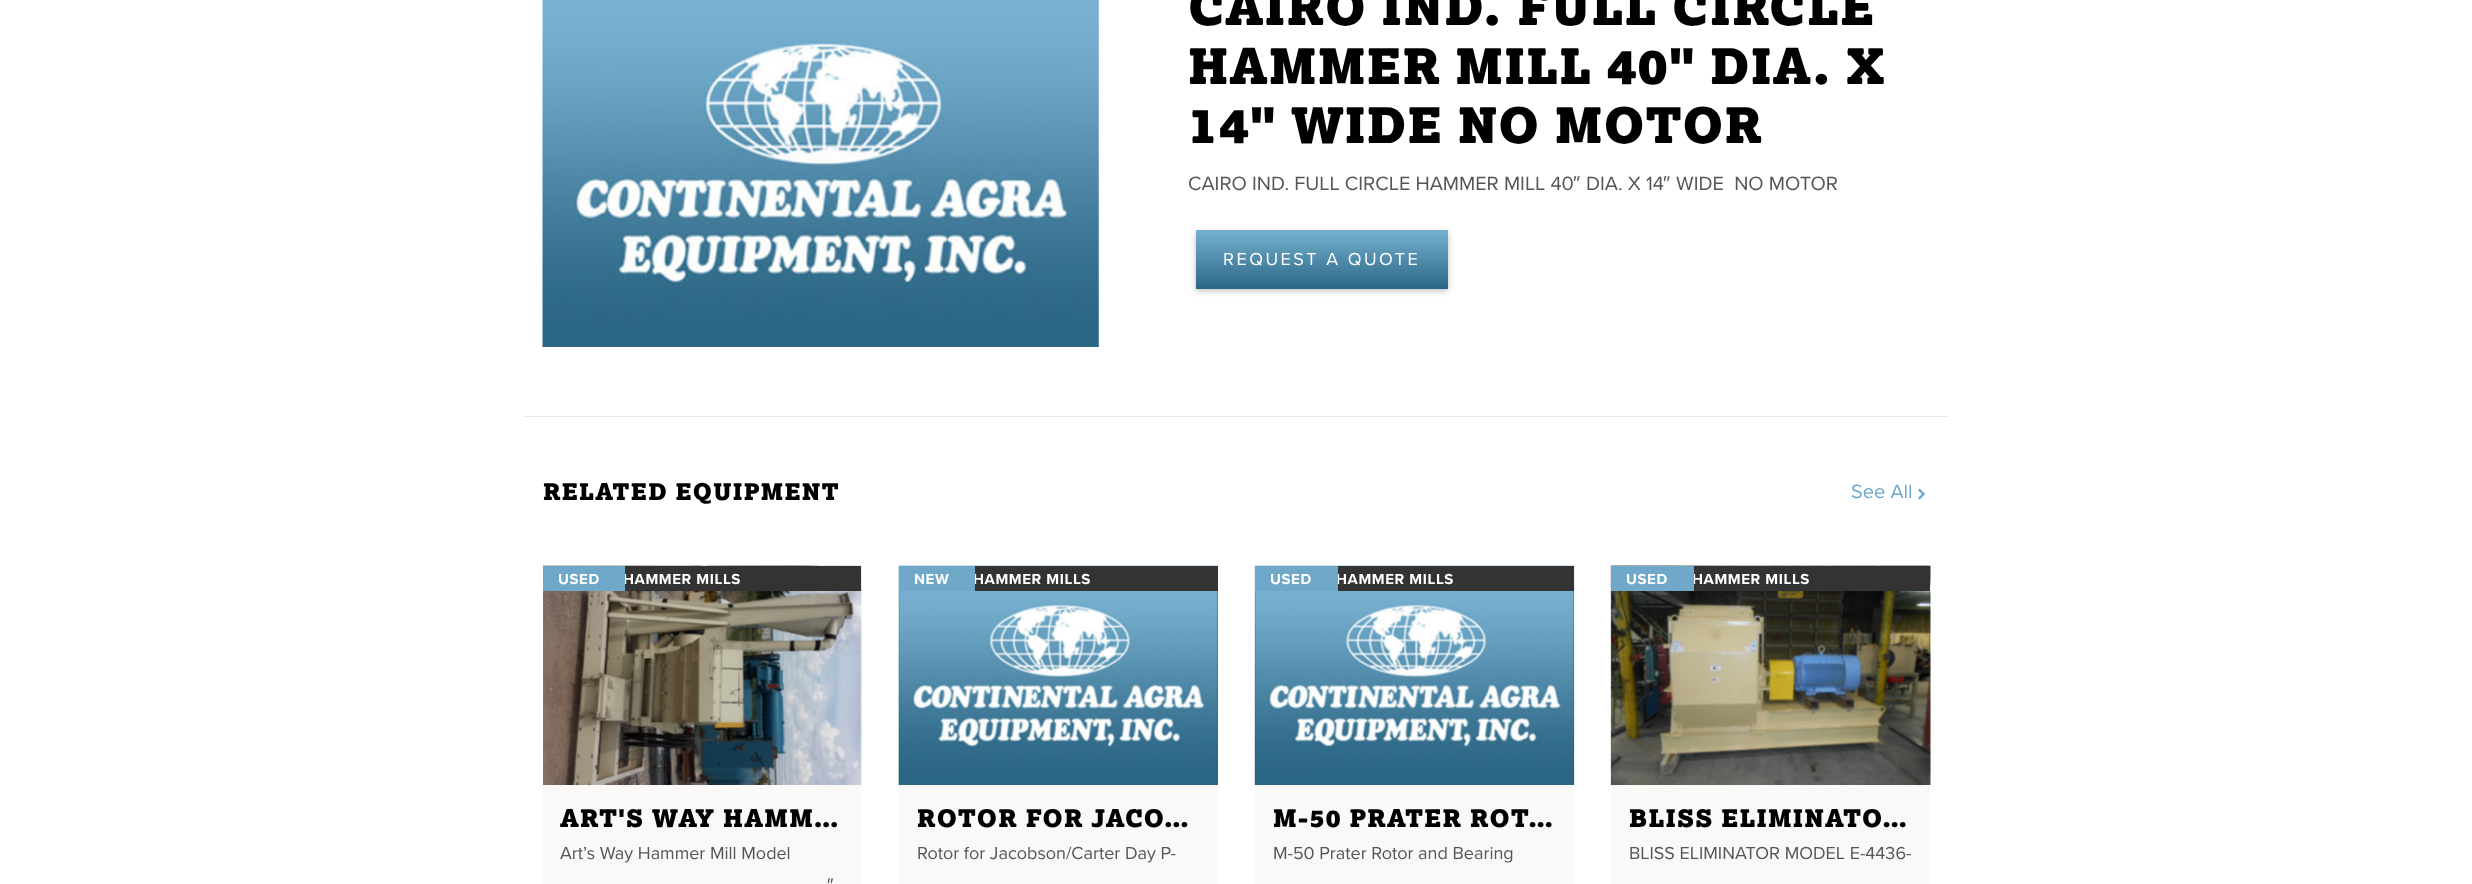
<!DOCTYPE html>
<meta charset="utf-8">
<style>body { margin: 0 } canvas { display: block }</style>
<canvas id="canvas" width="2472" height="884"></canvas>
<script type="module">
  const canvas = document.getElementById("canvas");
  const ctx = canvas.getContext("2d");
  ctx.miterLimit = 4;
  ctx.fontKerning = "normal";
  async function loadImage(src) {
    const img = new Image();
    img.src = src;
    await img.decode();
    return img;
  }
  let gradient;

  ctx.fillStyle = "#ffffff";
  ctx.fillRect(0, 0, 2472, 884);
  ctx.fillStyle = "#e9e9e9";
  ctx.fillRect(524, 416, 1425, 1);
  ctx.drawImage(await loadImage("img1.png"), 542, 0, 557, 347);
  ctx.letterSpacing = "1.25px";
  ctx.font = "900 49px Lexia";
  ctx.fillStyle = "#000000";
  ctx.fillText("CAIRO IND. FULL CIRCLE", 1188, 25);
  ctx.fillText("HAMMER MILL 40\" DIA. X", 1188, 84);
  ctx.fillText("14\" WIDE NO MOTOR", 1188, 143);
  ctx.letterSpacing = "0px";
  ctx.font = "20px Proxima Nova";
  ctx.fillStyle = "#555555";
  ctx.fillText("CAIRO IND. FULL CIRCLE HAMMER MILL 40", 1188, 190);
  ctx.font = "20px Liberation Sans";
  ctx.fillText("″", 1573, 190);
  ctx.font = "20px Proxima Nova";
  ctx.fillText("DIA. X 14", 1586, 190);
  ctx.font = "20px Liberation Sans";
  ctx.fillText("″", 1663, 190);
  ctx.font = "20px Proxima Nova";
  ctx.fillText("WIDE  NO MOTOR", 1676, 190);
  ctx.fillStyle = "rgba(0, 0, 0, 0.25)";
  ctx.filter = "blur(3px)";
  ctx.beginPath();
  ctx.rect(1196, 233, 252, 58);
  ctx.fill();
  ctx.filter = "none";
  gradient = ctx.createLinearGradient(1322, 230, 1322, 348);
  gradient.addColorStop(0, "#77b1d1");
  gradient.addColorStop(0.5, "#2b6685");
  gradient.addColorStop(1, "#20364c");
  ctx.fillStyle = gradient;
  ctx.fillRect(1196, 230, 252, 59);
  ctx.letterSpacing = "2.5px";
  ctx.font = "18px Proxima Nova";
  ctx.fillStyle = "#ffffff";
  ctx.fillText("REQUEST A QUOTE", 1223, 265);
  ctx.letterSpacing = "1.25px";
  ctx.font = "900 23px Lexia";
  ctx.fillStyle = "#000000";
  ctx.fillText("RELATED EQUIPMENT", 543, 500);
  ctx.letterSpacing = "0px";
  ctx.font = "20px Proxima Nova";
  ctx.fillStyle = "#6fa8c9";
  ctx.fillText("See All", 1851, 498);
  ctx.drawImage(await loadImage("img2.png"), 1918, 488, 7, 12);
  ctx.fillStyle = "#faf9f7";
  ctx.fillRect(543, 776, 318, 108);
  ctx.drawImage(await loadImage("img3.png"), 543, 565, 319, 220);
  ctx.fillStyle = "#333333";
  ctx.fillRect(625, 566, 236, 25);
  ctx.letterSpacing = "0.6px";
  ctx.font = "bold 15px Proxima Nova";
  ctx.fillStyle = "#ffffff";
  ctx.fillText("HAMMER MILLS", 623, 584);
  ctx.fillStyle = "#6fa8c9";
  ctx.fillRect(543, 566, 82, 25);
  ctx.fillStyle = "#ffffff";
  ctx.fillText("USED", 558, 584);
  ctx.letterSpacing = "1.25px";
  ctx.font = "900 24.25px Lexia";
  ctx.fillStyle = "#000000";
  ctx.fillText("ART'S WAY HAMM…", 560, 827);
  ctx.letterSpacing = "0px";
  ctx.font = "18px Proxima Nova";
  ctx.fillStyle = "#555555";
  ctx.fillText("Art’s Way Hammer Mill Model", 560, 859);
  ctx.font = "18px Liberation Sans";
  ctx.fillText("″", 827, 891);
  ctx.fillRect(899, 591, 319, 194);
  ctx.drawImage(await loadImage("img4.png"), 898, 565, 320, 220);
  ctx.fillStyle = "#333333";
  ctx.fillRect(975, 566, 243, 25);
  ctx.letterSpacing = "0.6px";
  ctx.font = "bold 15px Proxima Nova";
  ctx.fillStyle = "#ffffff";
  ctx.fillText("HAMMER MILLS", 973, 584);
  ctx.fillStyle = "#6fa8c9";
  ctx.fillRect(899, 566, 76, 25);
  ctx.fillStyle = "#ffffff";
  ctx.fillText("NEW", 914, 584);
  ctx.fillStyle = "#faf9f7";
  ctx.fillRect(899, 785, 319, 99);
  ctx.letterSpacing = "1.25px";
  ctx.font = "900 24.25px Lexia";
  ctx.fillStyle = "#000000";
  ctx.fillText("ROTOR FOR JACO…", 917, 827);
  ctx.letterSpacing = "0px";
  ctx.font = "18px Proxima Nova";
  ctx.fillStyle = "#555555";
  ctx.fillText("Rotor for Jacobson/Carter Day P-", 917, 859);
  ctx.fillRect(1255, 591, 319, 194);
  ctx.drawImage(await loadImage("img5.png"), 1254, 565, 321, 220);
  ctx.fillStyle = "#333333";
  ctx.fillRect(1338, 566, 236, 25);
  ctx.letterSpacing = "0.6px";
  ctx.font = "bold 15px Proxima Nova";
  ctx.fillStyle = "#ffffff";
  ctx.fillText("HAMMER MILLS", 1336, 584);
  ctx.fillStyle = "#6fa8c9";
  ctx.fillRect(1255, 566, 83, 25);
  ctx.fillStyle = "#ffffff";
  ctx.fillText("USED", 1270, 584);
  ctx.fillStyle = "#faf9f7";
  ctx.fillRect(1255, 785, 319, 99);
  ctx.letterSpacing = "1.25px";
  ctx.font = "900 24.25px Lexia";
  ctx.fillStyle = "#000000";
  ctx.fillText("M-50 PRATER ROT…", 1273, 827);
  ctx.letterSpacing = "0px";
  ctx.font = "18px Proxima Nova";
  ctx.fillStyle = "#555555";
  ctx.fillText("M-50 Prater Rotor and Bearing", 1273, 859);
  ctx.fillRect(1611, 591, 319, 194);
  ctx.drawImage(await loadImage("img6.png"), 1610, 565, 321, 220);
  ctx.fillStyle = "#333333";
  ctx.fillRect(1694, 566, 236, 25);
  ctx.letterSpacing = "0.6px";
  ctx.font = "bold 15px Proxima Nova";
  ctx.fillStyle = "#ffffff";
  ctx.fillText("HAMMER MILLS", 1692, 584);
  ctx.fillStyle = "#6fa8c9";
  ctx.fillRect(1611, 566, 83, 25);
  ctx.fillStyle = "#ffffff";
  ctx.fillText("USED", 1626, 584);
  ctx.fillStyle = "#faf9f7";
  ctx.fillRect(1611, 785, 319, 99);
  ctx.letterSpacing = "1.25px";
  ctx.font = "900 24.25px Lexia";
  ctx.fillStyle = "#000000";
  ctx.fillText("BLISS ELIMINATO…", 1629, 827);
  ctx.letterSpacing = "0px";
  ctx.font = "18px Proxima Nova";
  ctx.fillStyle = "#555555";
  ctx.fillText("BLISS ELIMINATOR MODEL E-4436-", 1629, 859);
</script>
